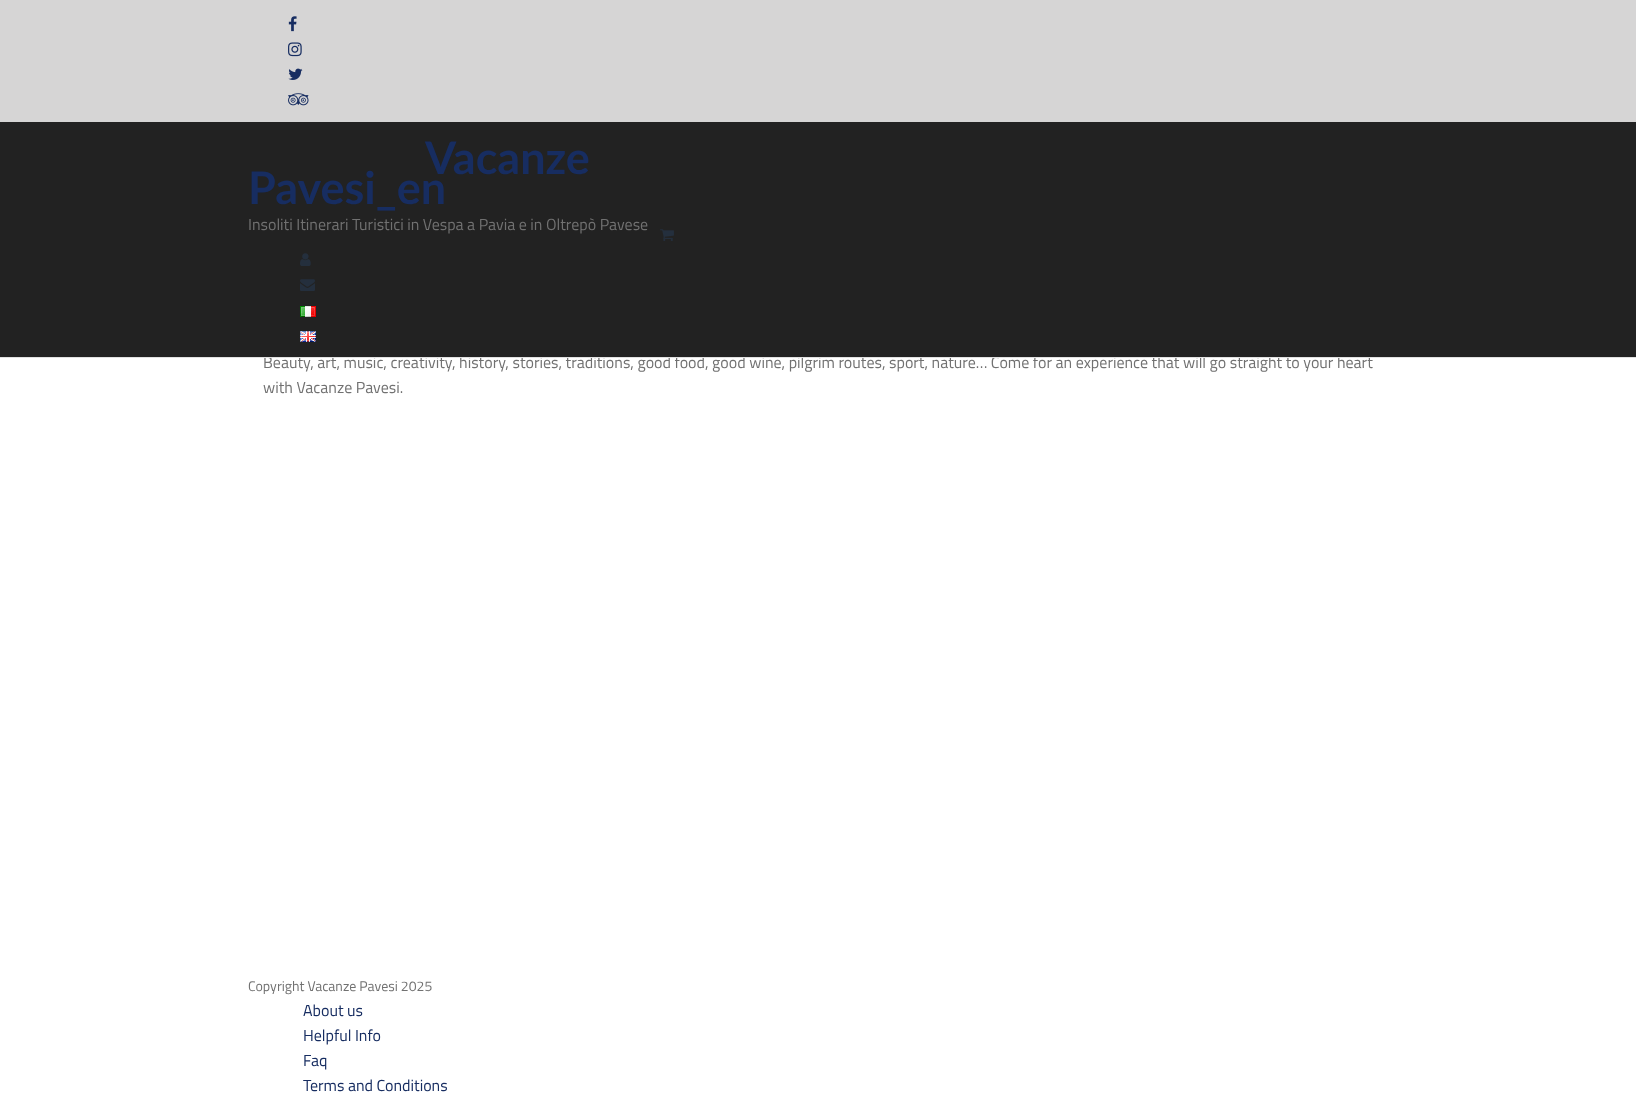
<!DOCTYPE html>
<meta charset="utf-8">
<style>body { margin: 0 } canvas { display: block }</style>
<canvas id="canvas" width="1636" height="1110"></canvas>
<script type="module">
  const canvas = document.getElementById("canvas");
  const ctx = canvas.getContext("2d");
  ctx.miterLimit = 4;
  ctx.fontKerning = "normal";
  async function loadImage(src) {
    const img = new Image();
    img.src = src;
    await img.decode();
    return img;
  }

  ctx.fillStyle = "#ffffff";
  ctx.fillRect(0, 0, 1636, 1110);
  ctx.font = "16px Titillium Web";
  ctx.fillStyle = "#717171";
  ctx.fillText("Beauty, art, music, creativity, history, stories, traditions, good food, good wine, pilgrim routes, sport, nature… Come for an experience that will go straight to your heart", 263, 368);
  ctx.fillStyle = "#222222";
  ctx.fillRect(0, 122, 1636, 235);
  ctx.fillStyle = "#e1e1e1";
  ctx.fillRect(0, 357, 1636, 1);
  ctx.fillStyle = "#d6d5d5";
  ctx.fillRect(0, 0, 1636, 122);
  ctx.drawImage(await loadImage("img1.png"), 288, 16, 9, 16);
  ctx.drawImage(await loadImage("img2.png"), 288, 42, 14, 15);
  ctx.drawImage(await loadImage("img3.png"), 288, 68, 15, 12);
  ctx.drawImage(await loadImage("img4.png"), 288, 93, 21, 13);
  ctx.font = "bold 45px Lato";
  ctx.fillStyle = "#172d61";
  ctx.fillText("Vacanze", 425, 174);
  ctx.fillText("Pavesi_en", 248, 204);
  ctx.font = "16px Titillium Web";
  ctx.fillStyle = "#717171";
  ctx.fillText("Insoliti Itinerari Turistici in Vespa a Pavia e in Oltrepò Pavese", 248, 230);
  ctx.drawImage(await loadImage("img5.png"), 660, 229, 14, 12);
  ctx.drawImage(await loadImage("img6.png"), 300, 253, 11, 13);
  ctx.drawImage(await loadImage("img7.png"), 300, 279, 15, 12);
  ctx.drawImage(await loadImage("img8.png"), 300, 306, 16, 11);
  ctx.drawImage(await loadImage("img9.png"), 300, 331, 16, 11);
  ctx.fillText("with Vacanze Pavesi.", 263, 393);
  ctx.font = "14px Titillium Web";
  ctx.fillText("Copyright Vacanze Pavesi 2025", 248, 991);
  ctx.font = "16px Titillium Web";
  ctx.fillStyle = "#172d61";
  ctx.fillText("About us", 303, 1016);
  ctx.fillText("Helpful Info", 303, 1041);
  ctx.fillText("Faq", 303, 1066);
  ctx.fillText("Terms and Conditions", 303, 1091);
</script>
